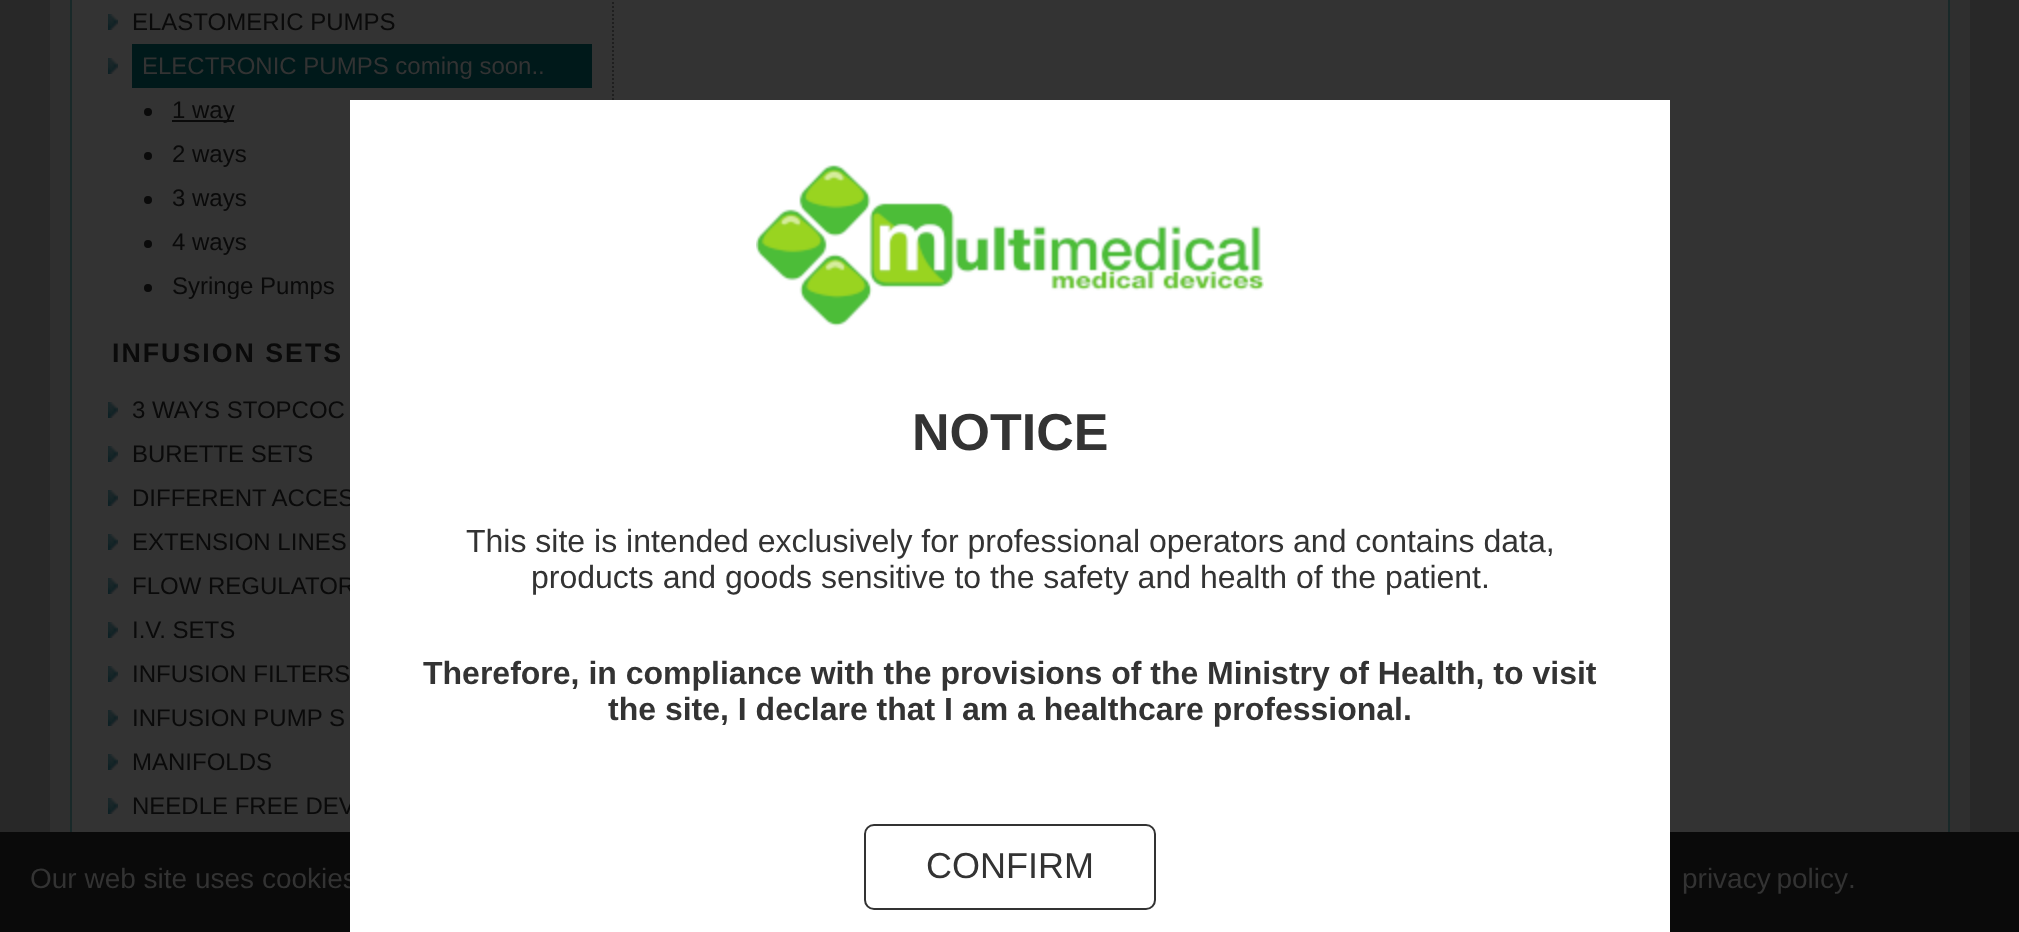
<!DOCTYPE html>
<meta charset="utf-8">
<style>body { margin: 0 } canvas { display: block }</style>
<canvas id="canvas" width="2019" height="932"></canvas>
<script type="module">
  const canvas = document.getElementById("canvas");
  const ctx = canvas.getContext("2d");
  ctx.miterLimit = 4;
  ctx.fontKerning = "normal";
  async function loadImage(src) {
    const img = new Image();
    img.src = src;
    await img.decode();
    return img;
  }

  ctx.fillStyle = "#282828";
  ctx.fillRect(0, 0, 2019, 932);
  ctx.fillStyle = "#2f2f2f";
  ctx.fillRect(50, 0, 1920, 832);
  ctx.fillStyle = "#333333";
  ctx.fillRect(72, 0, 1876, 832);
  ctx.strokeStyle = "#192929";
  ctx.lineWidth = 2;
  ctx.strokeRect(71, -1, 1878, 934);
  ctx.beginPath();
  ctx.moveTo(613, -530);
  ctx.lineTo(613, 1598);
  ctx.strokeStyle = "#1f1f1f";
  ctx.setLineDash([2, 2]);
  ctx.stroke();
  ctx.drawImage(await loadImage("img1.png"), 108, 14, 10, 16);
  ctx.font = "24px Liberation Sans";
  ctx.fillStyle = "#0a0a0a";
  ctx.fillText("ELASTOMERIC PUMPS", 132, 30);
  ctx.fillStyle = "#00191a";
  ctx.fillRect(132, 44, 460, 44);
  ctx.drawImage(await loadImage("img1.png"), 108, 58, 10, 16);
  ctx.fillStyle = "#333333";
  ctx.fillText("ELECTRONIC PUMPS coming soon..", 142, 74);
  ctx.fillStyle = "#0a0a0a";
  ctx.beginPath();
  ctx.arc(148, 112, 4, 0, Math.PI * 2);
  ctx.fill();
  ctx.fillRect(172, 120, 62, 2);
  ctx.fillText("1 way", 172, 118);
  ctx.beginPath();
  ctx.arc(148, 156, 4, 0, Math.PI * 2);
  ctx.fill();
  ctx.fillText("2 ways", 172, 162);
  ctx.beginPath();
  ctx.arc(148, 200, 4, 0, Math.PI * 2);
  ctx.fill();
  ctx.fillText("3 ways", 172, 206);
  ctx.beginPath();
  ctx.arc(148, 244, 4, 0, Math.PI * 2);
  ctx.fill();
  ctx.fillText("4 ways", 172, 250);
  ctx.beginPath();
  ctx.arc(148, 288, 4, 0, Math.PI * 2);
  ctx.fill();
  ctx.fillText("Syringe Pumps", 172, 294);
  ctx.letterSpacing = "2px";
  ctx.font = "bold 26.75px Liberation Sans";
  ctx.fillText("INFUSION SETS", 112, 362);
  ctx.drawImage(await loadImage("img1.png"), 108, 402, 10, 16);
  ctx.letterSpacing = "0px";
  ctx.font = "24px Liberation Sans";
  ctx.fillText("3 WAYS STOPCOC", 132, 418);
  ctx.drawImage(await loadImage("img1.png"), 108, 446, 10, 16);
  ctx.fillText("BURETTE SETS", 132, 462);
  ctx.drawImage(await loadImage("img1.png"), 108, 490, 10, 16);
  ctx.fillText("DIFFERENT ACCES", 132, 506);
  ctx.drawImage(await loadImage("img1.png"), 108, 534, 10, 16);
  ctx.fillText("EXTENSION LINES", 132, 550);
  ctx.drawImage(await loadImage("img1.png"), 108, 578, 10, 16);
  ctx.fillText("FLOW REGULATOR", 132, 594);
  ctx.drawImage(await loadImage("img1.png"), 108, 622, 10, 16);
  ctx.fillText("I.V. SETS", 132, 638);
  ctx.drawImage(await loadImage("img1.png"), 108, 666, 10, 16);
  ctx.fillText("INFUSION FILTERS", 132, 682);
  ctx.drawImage(await loadImage("img1.png"), 108, 710, 10, 16);
  ctx.fillText("INFUSION PUMP S", 132, 726);
  ctx.drawImage(await loadImage("img1.png"), 108, 754, 10, 16);
  ctx.fillText("MANIFOLDS", 132, 770);
  ctx.drawImage(await loadImage("img1.png"), 108, 798, 10, 16);
  ctx.fillText("NEEDLE FREE DEV", 132, 814);
  ctx.fillRect(0, 832, 2019, 100);
  ctx.font = "28px Liberation Sans";
  ctx.fillStyle = "#333333";
  ctx.fillText("Our web site uses cookies", 30, 888);
  ctx.fillStyle = "#ffffff";
  ctx.fillRect(350, 100, 1320, 832);
  ctx.drawImage(await loadImage("img2.png"), 756, 164, 508, 163);
  ctx.font = "bold 52px Liberation Sans";
  ctx.fillStyle = "#333333";
  ctx.fillText("NOTICE", 912, 450);
  ctx.font = "32px Liberation Sans";
  ctx.fillText("This site is intended exclusively for professional operators and contains data,", 466, 552);
  ctx.fillText("products and goods sensitive to the safety and health of the patient.", 531, 588);
  ctx.font = "bold 32px Liberation Sans";
  ctx.fillText("Therefore, in compliance with the provisions of the Ministry of Health, to visit", 423, 684);
  ctx.fillText("the site, I declare that I am a healthcare professional.", 608, 720);
  ctx.beginPath();
  ctx.roundRect(865, 825, 290, 84, 9);
  ctx.strokeStyle = "#333333";
  ctx.setLineDash([]);
  ctx.stroke();
  ctx.font = "36px Liberation Sans";
  ctx.fillText("CONFIRM", 926, 878);
  ctx.wordSpacing = "-2px";
  ctx.font = "28px Liberation Sans";
  ctx.fillText("privacy policy", 1682, 888);
  ctx.wordSpacing = "0px";
  ctx.fillText(".", 1848, 888);
</script>
